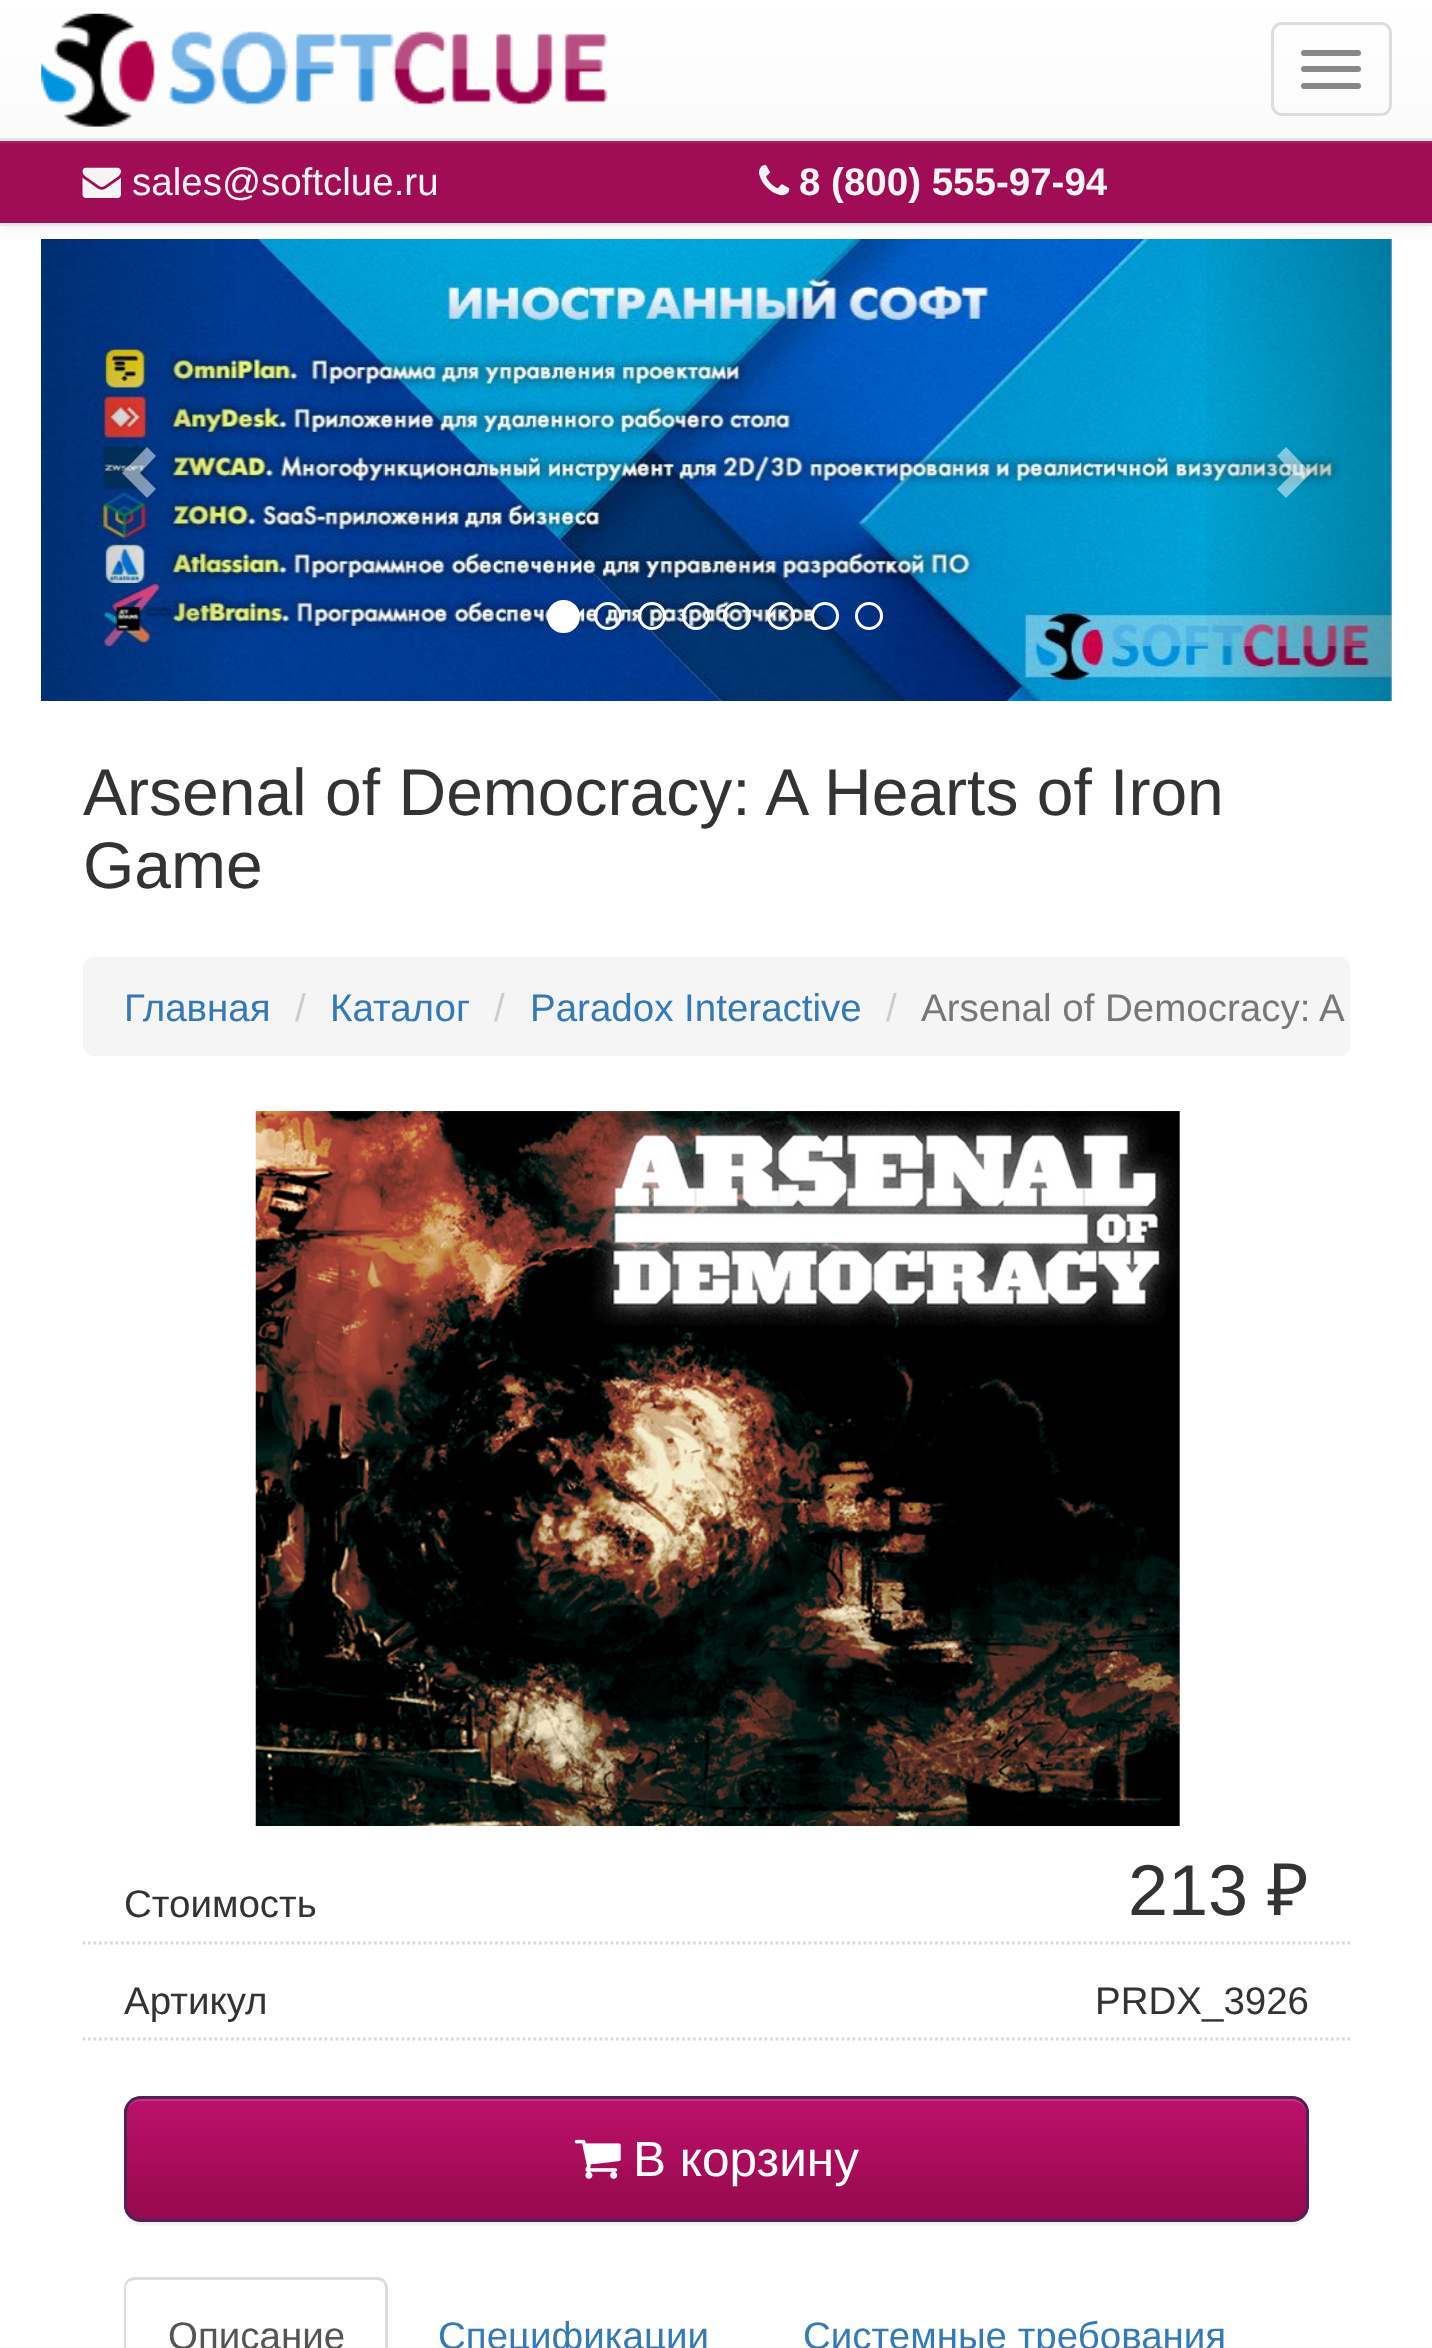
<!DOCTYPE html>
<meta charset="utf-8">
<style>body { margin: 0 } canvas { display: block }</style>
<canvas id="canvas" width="1432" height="2348"></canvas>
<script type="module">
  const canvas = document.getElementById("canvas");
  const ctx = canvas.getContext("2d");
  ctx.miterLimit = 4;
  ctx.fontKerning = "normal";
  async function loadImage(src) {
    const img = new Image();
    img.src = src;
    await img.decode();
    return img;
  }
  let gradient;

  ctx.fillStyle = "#ffffff";
  ctx.fillRect(0, 0, 1432, 2348);
  ctx.drawImage(await loadImage("img4.png"), 41, 239, 1351, 462);
  gradient = ctx.createLinearGradient(1188, 470, 1392, 470);
  gradient.addColorStop(0, "rgba(0, 0, 0, 0)");
  gradient.addColorStop(1, "rgba(0, 0, 0, 0.25)");
  ctx.fillStyle = gradient;
  ctx.fillRect(1206, 239, 186, 462);
  ctx.fillStyle = "rgba(0, 0, 0, 0.07)";
  ctx.filter = "blur(7px)";
  ctx.beginPath();
  ctx.rect(0, 3, 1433, 225);
  ctx.fill();
  ctx.filter = "none";
  gradient = ctx.createLinearGradient(716, 0, 716, 223);
  gradient.addColorStop(0, "#ffffff");
  gradient.addColorStop(1, "#f8f8f8");
  ctx.fillStyle = gradient;
  ctx.fillRect(0, 0, 1432, 138);
  ctx.fillStyle = "#e7e7e7";
  ctx.fillRect(0, 223, 1432, 3);
  ctx.drawImage(await loadImage("img1.png"), 41, 13, 567, 114);
  ctx.beginPath();
  ctx.roundRect(1272.5, 23.5, 118, 91, 9.5);
  ctx.strokeStyle = "#dddddd";
  ctx.lineWidth = 3;
  ctx.stroke();
  ctx.fillStyle = "#888888";
  ctx.beginPath();
  ctx.roundRect(1301, 50, 60, 6, 3);
  ctx.fill();
  ctx.beginPath();
  ctx.roundRect(1301, 66, 60, 6, 3);
  ctx.fill();
  ctx.beginPath();
  ctx.roundRect(1301, 83, 60, 6, 3);
  ctx.fill();
  ctx.fillStyle = "#a10c56";
  ctx.fillRect(0, 143, 1432, 80);
  ctx.fillStyle = "#aa2467";
  ctx.fillRect(0, 141, 1432, 2);
  ctx.fillStyle = "#e7e7e7";
  ctx.fillRect(0, 138, 1432, 3);
  ctx.drawImage(await loadImage("img2.png"), 82, 167, 39, 31);
  ctx.font = "38.5px Liberation Sans";
  ctx.fillStyle = "#f5f5f5";
  ctx.fillText("sales@softclue.ru", 132, 195);
  ctx.drawImage(await loadImage("img3.png"), 759, 165, 31, 31);
  ctx.font = "bold 38.5px Liberation Sans";
  ctx.fillText("8 (800) 555-97-94", 799, 195);
  ctx.fillStyle = "rgba(255, 255, 255, 0.5)";
  ctx.beginPath();
  ctx.moveTo(156, 456);
  ctx.lineTo(140, 473);
  ctx.lineTo(156, 489);
  ctx.lineTo(147, 498);
  ctx.lineTo(122, 473);
  ctx.lineTo(147, 447);
  ctx.closePath();
  ctx.fill();
  ctx.beginPath();
  ctx.moveTo(1311, 473);
  ctx.lineTo(1286, 498);
  ctx.lineTo(1277, 489);
  ctx.lineTo(1293, 473);
  ctx.lineTo(1277, 456);
  ctx.lineTo(1286, 447);
  ctx.closePath();
  ctx.fill();
  ctx.fillStyle = "#ffffff";
  ctx.beginPath();
  ctx.arc(563.5, 616.5, 15, 0, Math.PI * 2);
  ctx.fill();
  ctx.strokeStyle = "#ffffff";
  ctx.stroke();
  ctx.beginPath();
  ctx.arc(608, 616, 12.5, 0, Math.PI * 2);
  ctx.stroke();
  ctx.beginPath();
  ctx.arc(652, 616, 12.5, 0, Math.PI * 2);
  ctx.stroke();
  ctx.beginPath();
  ctx.arc(696, 616, 12.5, 0, Math.PI * 2);
  ctx.stroke();
  ctx.beginPath();
  ctx.arc(737, 616, 12.5, 0, Math.PI * 2);
  ctx.stroke();
  ctx.beginPath();
  ctx.arc(781, 616, 12.5, 0, Math.PI * 2);
  ctx.stroke();
  ctx.beginPath();
  ctx.arc(825, 616, 12.5, 0, Math.PI * 2);
  ctx.stroke();
  ctx.beginPath();
  ctx.arc(869, 616, 12.5, 0, Math.PI * 2);
  ctx.stroke();
  ctx.font = "66px Liberation Sans";
  ctx.fillStyle = "#333333";
  ctx.fillText("Arsenal of Democracy: A Hearts of Iron", 83, 815);
  ctx.fillText("Game", 83, 888);
  ctx.fillStyle = "#f5f5f5";
  ctx.beginPath();
  ctx.roundRect(83, 957, 1267, 99, 11);
  ctx.fill();
  ctx.font = "38.5px Liberation Sans";
  ctx.fillStyle = "#337ab7";
  ctx.fillText("Главная", 124, 1021);
  ctx.fillStyle = "#cccccc";
  ctx.fillText("/", 295, 1021);
  ctx.fillStyle = "#337ab7";
  ctx.fillText("Каталог", 330, 1021);
  ctx.fillStyle = "#cccccc";
  ctx.fillText("/", 494, 1021);
  ctx.fillStyle = "#337ab7";
  ctx.fillText("Paradox Interactive", 530, 1021);
  ctx.fillStyle = "#cccccc";
  ctx.fillText("/", 886, 1021);
  ctx.fillStyle = "#777777";
  ctx.fillText("Arsenal of Democracy: A", 921, 1021);
  ctx.drawImage(await loadImage("img5.png"), 255, 1111, 925, 715);
  ctx.beginPath();
  ctx.moveTo(82.5, 1943);
  ctx.lineTo(506, 1943);
  ctx.strokeStyle = "#d9d9d9";
  ctx.lineWidth = 2.8;
  ctx.setLineDash([2.75, 2.75]);
  ctx.stroke();
  ctx.fillStyle = "#333333";
  ctx.fillText("Стоимость", 124, 1917);
  ctx.beginPath();
  ctx.moveTo(506, 1943);
  ctx.lineTo(1350, 1943);
  ctx.stroke();
  ctx.font = "72px Liberation Sans";
  ctx.fillText("213", 1128, 1915);
  ctx.font = "72px Noto Sans";
  ctx.fillText("₽", 1267, 1915);
  ctx.beginPath();
  ctx.moveTo(82.5, 2039);
  ctx.lineTo(506, 2039);
  ctx.stroke();
  ctx.font = "38.5px Liberation Sans";
  ctx.fillText("Артикул", 124, 2014);
  ctx.beginPath();
  ctx.moveTo(506, 2039);
  ctx.lineTo(1350, 2039);
  ctx.stroke();
  ctx.fillText("PRDX_3926", 1095, 2014);
  ctx.fillStyle = "rgba(0, 0, 0, 0.07)";
  ctx.filter = "blur(1.5px)";
  ctx.beginPath();
  ctx.roundRect(124, 2098, 1185, 127, 17);
  ctx.fill();
  ctx.filter = "none";
  ctx.save();
  ctx.beginPath();
  ctx.roundRect(124, 2096, 1185, 126, 17);
  ctx.clip();
  gradient = ctx.createLinearGradient(127, 2098, 127, 2219);
  gradient.addColorStop(0, "#bd106a");
  gradient.addColorStop(1, "#96094e");
  ctx.fillStyle = gradient;
  ctx.fillRect(124, 2098, 1185, 121);
  ctx.restore();
  ctx.fillStyle = "rgba(255, 255, 255, 0.15)";
  ctx.beginPath();
  ctx.moveTo(140, 2101);
  ctx.lineTo(1292, 2101);
  ctx.bezierCurveTo(1300, 2101, 1306, 2107, 1306, 2115);
  ctx.lineTo(1306, 2112);
  ctx.bezierCurveTo(1306, 2104, 1300, 2098, 1292, 2098);
  ctx.lineTo(141, 2098);
  ctx.bezierCurveTo(134, 2098, 129, 2103, 127, 2109);
  ctx.bezierCurveTo(130, 2104, 135, 2101, 140, 2101);
  ctx.closePath();
  ctx.fill();
  ctx.beginPath();
  ctx.roundRect(125.5, 2097.5, 1182, 123, 15.5);
  ctx.strokeStyle = "#4e2257";
  ctx.lineWidth = 3;
  ctx.setLineDash([]);
  ctx.stroke();
  ctx.drawImage(await loadImage("img6.png"), 574, 2139, 47, 40);
  ctx.font = "49.5px Liberation Sans";
  ctx.fillStyle = "#ffffff";
  ctx.fillText("В корзину", 633, 2176);
  ctx.fillStyle = "#dddddd";
  ctx.beginPath();
  ctx.moveTo(135, 2277);
  ctx.bezierCurveTo(132, 2277, 129, 2278, 127, 2280);
  ctx.lineTo(129, 2282);
  ctx.bezierCurveTo(130, 2281, 133, 2280, 135, 2280);
  ctx.lineTo(377, 2280);
  ctx.bezierCurveTo(379, 2280, 381, 2281, 383, 2282);
  ctx.lineTo(385, 2280);
  ctx.bezierCurveTo(383, 2278, 380, 2277, 377, 2277);
  ctx.closePath();
  ctx.fill();
  ctx.beginPath();
  ctx.moveTo(388, 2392);
  ctx.lineTo(385, 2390);
  ctx.lineTo(385, 2288);
  ctx.bezierCurveTo(385, 2286, 384, 2284, 383, 2282);
  ctx.lineTo(385, 2280);
  ctx.bezierCurveTo(386, 2282, 387, 2284, 388, 2286);
  ctx.closePath();
  ctx.fill();
  ctx.beginPath();
  ctx.moveTo(127, 2280);
  ctx.bezierCurveTo(125, 2282, 124, 2285, 124, 2288);
  ctx.lineTo(124, 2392);
  ctx.lineTo(126, 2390);
  ctx.lineTo(126, 2288);
  ctx.bezierCurveTo(126, 2285, 127, 2283, 129, 2282);
  ctx.closePath();
  ctx.fill();
  ctx.font = "38.5px Liberation Sans";
  ctx.fillStyle = "#555555";
  ctx.fillText("Описание", 168, 2349);
  ctx.fillStyle = "#337ab7";
  ctx.fillText("Спецификации", 438, 2349);
  ctx.fillText("Системные требования", 803, 2349);
</script>
